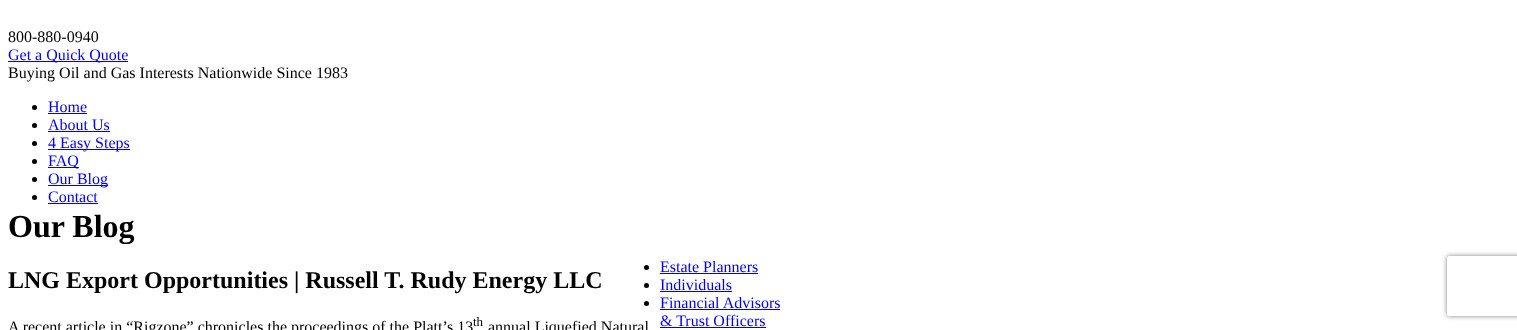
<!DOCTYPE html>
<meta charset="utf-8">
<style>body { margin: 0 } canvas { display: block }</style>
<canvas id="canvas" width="1517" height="330"></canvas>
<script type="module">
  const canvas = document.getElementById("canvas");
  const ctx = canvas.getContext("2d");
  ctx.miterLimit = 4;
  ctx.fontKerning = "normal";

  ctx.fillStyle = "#ffffff";
  ctx.fillRect(0, 0, 1517, 330);
  ctx.font = "16px Liberation Serif";
  ctx.fillStyle = "#000000";
  ctx.fillText("800-880-0940", 8, 42);
  ctx.fillStyle = "#0000ee";
  ctx.fillRect(8, 61, 120, 1);
  ctx.fillText("Get a Quick Quote", 8, 60);
  ctx.fillStyle = "#000000";
  ctx.fillText("Buying Oil and Gas Interests Nationwide Since 1983", 8, 78);
  ctx.beginPath();
  ctx.arc(34.5, 107.5, 2.5, 0, Math.PI * 2);
  ctx.fill();
  ctx.fillStyle = "#0000ee";
  ctx.fillText("Home", 48, 112);
  ctx.fillRect(48, 113, 39, 1);
  ctx.fillStyle = "#000000";
  ctx.beginPath();
  ctx.arc(34.5, 125.5, 2.5, 0, Math.PI * 2);
  ctx.fill();
  ctx.fillStyle = "#0000ee";
  ctx.fillText("About Us", 48, 130);
  ctx.fillRect(48, 131, 62, 1);
  ctx.fillStyle = "#000000";
  ctx.beginPath();
  ctx.arc(34.5, 143.5, 2.5, 0, Math.PI * 2);
  ctx.fill();
  ctx.fillStyle = "#0000ee";
  ctx.fillRect(48, 149, 82, 1);
  ctx.fillText("4 Easy Steps", 48, 148);
  ctx.fillStyle = "#000000";
  ctx.beginPath();
  ctx.arc(34.5, 161.5, 2.5, 0, Math.PI * 2);
  ctx.fill();
  ctx.fillStyle = "#0000ee";
  ctx.fillRect(48, 167, 31, 1);
  ctx.fillText("FAQ", 48, 166);
  ctx.fillStyle = "#000000";
  ctx.beginPath();
  ctx.arc(34.5, 179.5, 2.5, 0, Math.PI * 2);
  ctx.fill();
  ctx.fillStyle = "#0000ee";
  ctx.fillRect(48, 185, 60, 1);
  ctx.fillText("Our Blog", 48, 184);
  ctx.fillStyle = "#000000";
  ctx.beginPath();
  ctx.arc(34.5, 197.5, 2.5, 0, Math.PI * 2);
  ctx.fill();
  ctx.fillStyle = "#0000ee";
  ctx.fillText("Contact", 48, 202);
  ctx.fillRect(48, 203, 50, 1);
  ctx.font = "bold 32px Liberation Serif";
  ctx.fillStyle = "#000000";
  ctx.fillText("Our Blog", 8, 237);
  ctx.font = "bold 24px Liberation Serif";
  ctx.fillText("LNG Export Opportunities | Russell T. Rudy Energy LLC", 8, 288);
  ctx.font = "16px Liberation Serif";
  ctx.fillText("A recent article in “Rigzone” chronicles the proceedings of the Platt’s 13", 8, 332);
  ctx.font = "13px Liberation Serif";
  ctx.fillText("th", 473, 326);
  ctx.font = "16px Liberation Serif";
  ctx.fillText("annual Liquefied Natural", 488, 332);
  ctx.beginPath();
  ctx.arc(646.5, 267.5, 2.5, 0, Math.PI * 2);
  ctx.fill();
  ctx.fillStyle = "#0000ee";
  ctx.fillText("Estate Planners", 660, 272);
  ctx.fillRect(660, 273, 98, 1);
  ctx.fillStyle = "#000000";
  ctx.beginPath();
  ctx.arc(646.5, 285.5, 2.5, 0, Math.PI * 2);
  ctx.fill();
  ctx.fillStyle = "#0000ee";
  ctx.fillText("Individuals", 660, 290);
  ctx.fillRect(660, 291, 72, 1);
  ctx.fillStyle = "#000000";
  ctx.beginPath();
  ctx.arc(646.5, 303.5, 2.5, 0, Math.PI * 2);
  ctx.fill();
  ctx.fillStyle = "#0000ee";
  ctx.fillText("Financial Advisors", 660, 308);
  ctx.fillRect(660, 309, 120, 1);
  ctx.fillText("& Trust Officers", 660, 326);
  ctx.fillRect(660, 327, 106, 1);
  ctx.save();
  ctx.beginPath();
  ctx.moveTo(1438, 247);
  ctx.lineTo(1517, 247);
  ctx.lineTo(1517, 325);
  ctx.lineTo(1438, 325);
  ctx.closePath();
  ctx.moveTo(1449, 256);
  ctx.lineTo(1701, 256);
  ctx.bezierCurveTo(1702, 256, 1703, 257, 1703, 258);
  ctx.lineTo(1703, 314);
  ctx.bezierCurveTo(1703, 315, 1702, 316, 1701, 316);
  ctx.lineTo(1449, 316);
  ctx.bezierCurveTo(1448, 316, 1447, 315, 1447, 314);
  ctx.lineTo(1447, 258);
  ctx.bezierCurveTo(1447, 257, 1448, 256, 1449, 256);
  ctx.closePath();
  ctx.clip("evenodd");
  ctx.fillStyle = "#808080";
  ctx.filter = "blur(2.5px)";
  ctx.beginPath();
  ctx.roundRect(1447, 256, 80, 60, 2);
  ctx.fill();
  ctx.filter = "none";
  ctx.restore();
</script>
